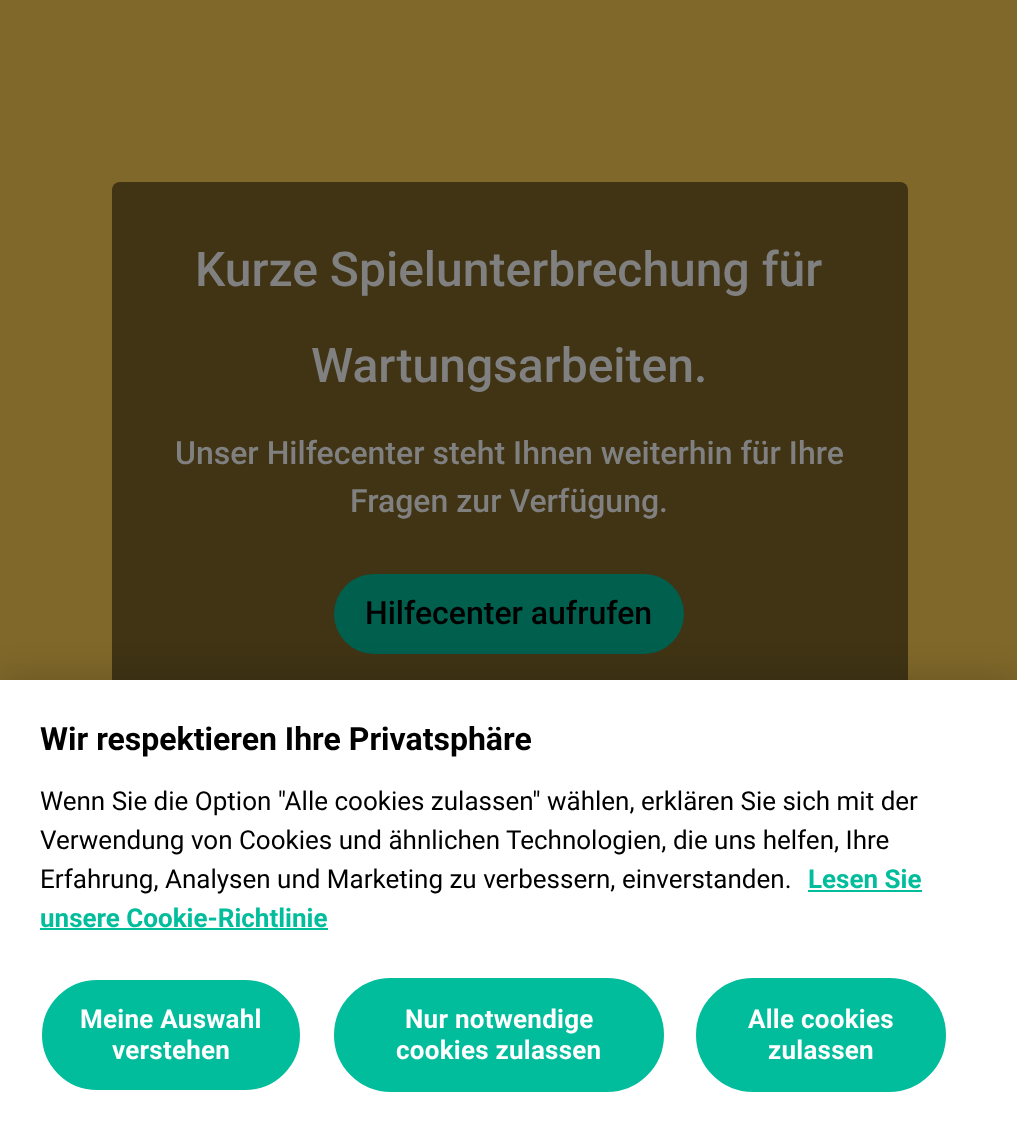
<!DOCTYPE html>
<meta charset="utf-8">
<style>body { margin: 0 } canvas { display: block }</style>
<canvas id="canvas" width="1017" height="1132"></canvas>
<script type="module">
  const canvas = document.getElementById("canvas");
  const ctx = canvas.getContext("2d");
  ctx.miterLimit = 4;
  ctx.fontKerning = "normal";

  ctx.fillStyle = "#80682a";
  ctx.fillRect(0, 0, 1017, 1132);
  ctx.fillStyle = "#403415";
  ctx.beginPath();
  ctx.roundRect(112, 182, 796, 512, 8);
  ctx.fill();
  ctx.font = "500 48px Roboto";
  ctx.fillStyle = "#808080";
  ctx.fillText("Kurze Spielunterbrechung für", 195, 286);
  ctx.fillText("Wartungsarbeiten.", 311, 382);
  ctx.font = "500 32px Roboto";
  ctx.fillText("Unser Hilfecenter steht Ihnen weiterhin für Ihre", 175, 464);
  ctx.fillText("Fragen zur Verfügung.", 350, 512);
  ctx.fillStyle = "#015f4e";
  ctx.beginPath();
  ctx.roundRect(334, 574, 350, 80, 40);
  ctx.fill();
  ctx.fillStyle = "#000000";
  ctx.fillText("Hilfecenter aufrufen", 365, 624);
  ctx.fillStyle = "rgba(0, 0, 0, 0.2)";
  ctx.filter = "blur(18px)";
  ctx.beginPath();
  ctx.rect(0, 680, 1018, 452);
  ctx.fill();
  ctx.filter = "none";
  ctx.fillStyle = "#ffffff";
  ctx.fillRect(0, 680, 1017, 452);
  ctx.font = "bold 32px Roboto";
  ctx.fillStyle = "#000000";
  ctx.fillText("Wir respektieren Ihre Privatsphäre", 40, 750);
  ctx.font = "26px Roboto";
  ctx.fillText("Wenn Sie die Option \"Alle cookies zulassen\" wählen, erklären Sie sich mit der", 40, 810);
  ctx.fillText("Verwendung von Cookies und ähnlichen Technologien, die uns helfen, Ihre", 40, 849);
  ctx.fillText("Erfahrung, Analysen und Marketing zu verbessern, einverstanden.", 40, 888);
  ctx.font = "bold 26px Roboto";
  ctx.fillStyle = "#02bd9c";
  ctx.fillText("Lesen Sie", 808, 888);
  ctx.fillRect(808, 890, 114, 2);
  ctx.fillText("unsere Cookie-Richtlinie", 40, 927);
  ctx.fillRect(40, 928, 288, 2);
  ctx.beginPath();
  ctx.roundRect(41, 979, 260, 112, 56);
  ctx.fill();
  ctx.strokeStyle = "#ffffff";
  ctx.lineWidth = 2;
  ctx.stroke();
  ctx.letterSpacing = "0.25px";
  ctx.fillStyle = "#ffffff";
  ctx.fillText("Meine Auswahl", 80, 1028);
  ctx.fillText("verstehen", 112, 1059);
  ctx.fillStyle = "#02bd9c";
  ctx.beginPath();
  ctx.roundRect(335, 979, 328, 112, 56);
  ctx.fill();
  ctx.strokeStyle = "#02bd9c";
  ctx.stroke();
  ctx.fillStyle = "#ffffff";
  ctx.fillText("Nur notwendige", 405, 1028);
  ctx.fillText("cookies zulassen", 396, 1059);
  ctx.fillStyle = "#02bd9c";
  ctx.beginPath();
  ctx.roundRect(697, 979, 248, 112, 56);
  ctx.fill();
  ctx.stroke();
  ctx.fillStyle = "#ffffff";
  ctx.fillText("Alle cookies", 748, 1028);
  ctx.fillText("zulassen", 768, 1059);
</script>
